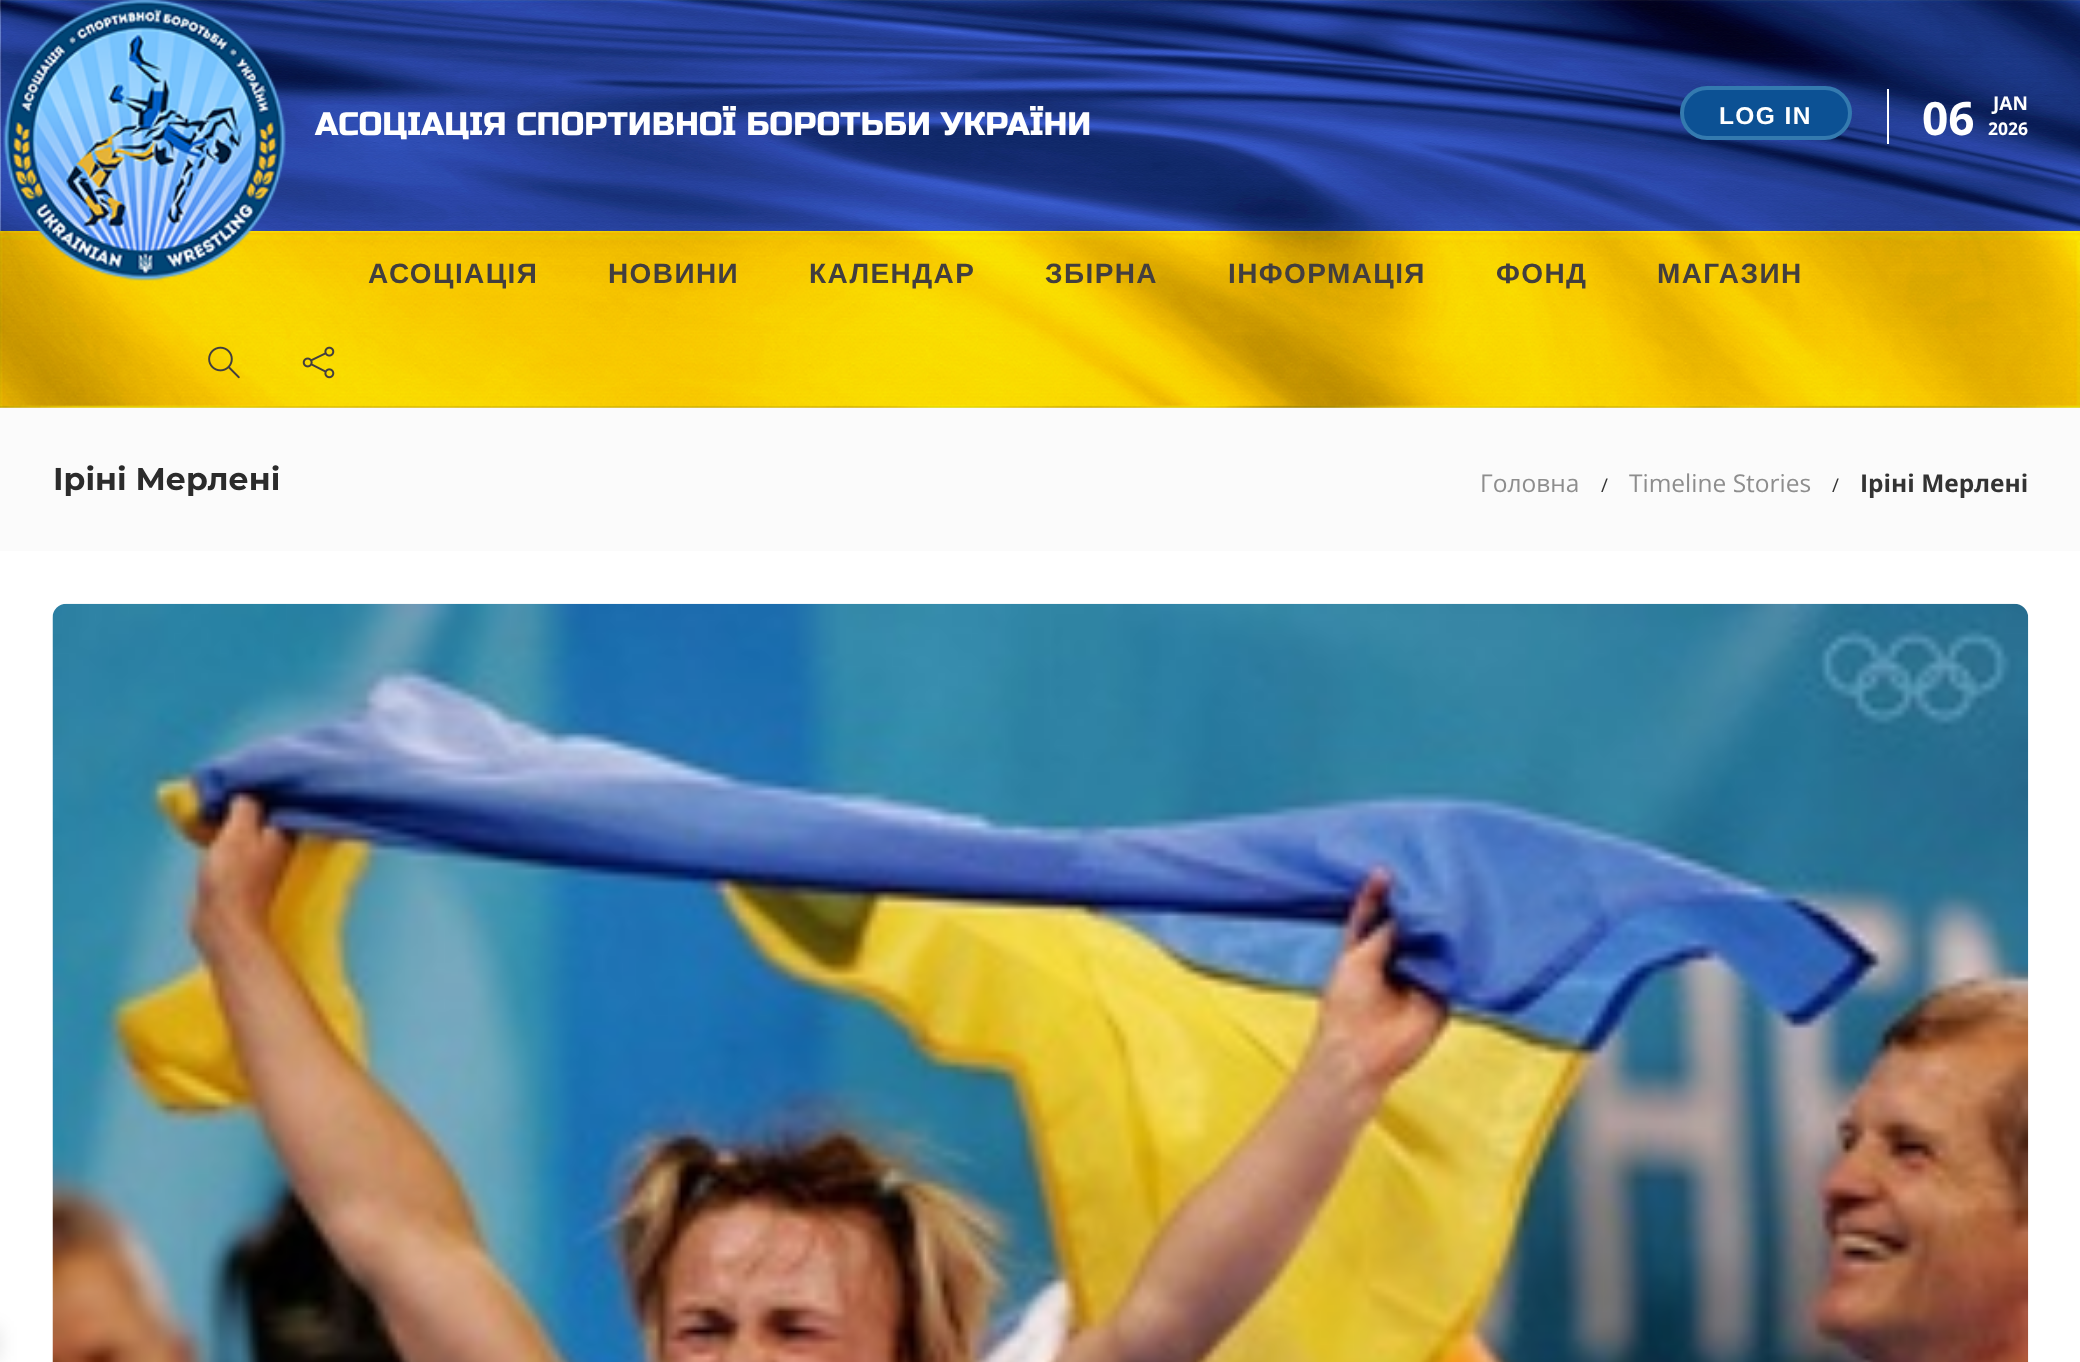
<!DOCTYPE html>
<meta charset="utf-8">
<style>body { margin: 0 } canvas { display: block }</style>
<canvas id="canvas" width="2080" height="1362"></canvas>
<script type="module">
  const canvas = document.getElementById("canvas");
  const ctx = canvas.getContext("2d");
  ctx.miterLimit = 4;
  ctx.fontKerning = "normal";
  async function loadImage(src) {
    const img = new Image();
    img.src = src;
    await img.decode();
    return img;
  }

  ctx.fillStyle = "#ffffff";
  ctx.fillRect(0, 0, 2080, 1362);
  ctx.drawImage(await loadImage("img1.png"), 0, 0, 2080, 231);
  ctx.font = "32.7px Russo One";
  ctx.fillText("АСОЦІАЦІЯ СПОРТИВНОЇ БОРОТЬБИ УКРАЇНИ", 315, 135);
  ctx.fillRect(1887, 89, 2, 55);
  ctx.fillStyle = "#0c5194";
  ctx.beginPath();
  ctx.roundRect(1682, 88, 168, 50, 25);
  ctx.fill();
  ctx.strokeStyle = "#347aaf";
  ctx.lineWidth = 4;
  ctx.stroke();
  ctx.letterSpacing = "1.4px";
  ctx.font = "bold 24.5px Liberation Sans";
  ctx.fillStyle = "#ffffff";
  ctx.fillText("LOG IN", 1719, 124);
  ctx.letterSpacing = "0px";
  ctx.font = "bold 46px Open Sans";
  ctx.fillText("06", 1922, 135);
  ctx.font = "bold 19px Open Sans";
  ctx.fillText("JAN", 1993, 110);
  ctx.font = "bold 17.5px Open Sans";
  ctx.fillText("2026", 1988, 135);
  ctx.drawImage(await loadImage("img2.png"), 0, 231, 2080, 177);
  ctx.fillStyle = "rgba(0, 0, 0, 0.08)";
  ctx.fillRect(0, 406, 2080, 2);
  ctx.drawImage(await loadImage("img3.png"), 3, 0, 283, 281);
  ctx.letterSpacing = "1.4px";
  ctx.font = "bold 28px Liberation Sans";
  ctx.fillStyle = "#423e3e";
  ctx.fillText("АСОЦІАЦІЯ", 368, 283);
  ctx.fillText("НОВИНИ", 608, 283);
  ctx.fillText("КАЛЕНДАР", 809, 283);
  ctx.fillText("ЗБІРНА", 1045, 283);
  ctx.fillText("ІНФОРМАЦІЯ", 1228, 283);
  ctx.fillText("ФОНД", 1496, 283);
  ctx.fillText("МАГАЗИН", 1657, 283);
  ctx.drawImage(await loadImage("img4.png"), 208, 346, 32, 33);
  ctx.drawImage(await loadImage("img5.png"), 302, 346, 33, 33);
  ctx.fillStyle = "#fbfbfb";
  ctx.fillRect(0, 408, 2080, 143);
  ctx.letterSpacing = "0px";
  ctx.font = "bold 31.5px Montserrat";
  ctx.fillStyle = "#2b2b2b";
  ctx.fillText("Іріні Мерлені", 53, 490);
  ctx.font = "24.5px Open Sans";
  ctx.fillStyle = "#8d8d8d";
  ctx.fillText("Головна", 1480, 492);
  ctx.font = "19px Open Sans";
  ctx.fillStyle = "#333333";
  ctx.fillText("/", 1601, 492);
  ctx.font = "24.5px Open Sans";
  ctx.fillStyle = "#8d8d8d";
  ctx.fillText("Timeline Stories", 1629, 492);
  ctx.font = "19px Open Sans";
  ctx.fillStyle = "#333333";
  ctx.fillText("/", 1832, 492);
  ctx.font = "bold 24.5px Open Sans";
  ctx.fillText("Іріні Мерлені", 1860, 492);
  ctx.drawImage(await loadImage("img6.png"), 52, 603, 1977, 759);
  ctx.fillStyle = "rgba(0, 0, 0, 0.1)";
  ctx.filter = "blur(9px)";
  ctx.beginPath();
  ctx.rect(-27, 1327, 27, 35);
  ctx.fill();
  ctx.filter = "none";
</script>
